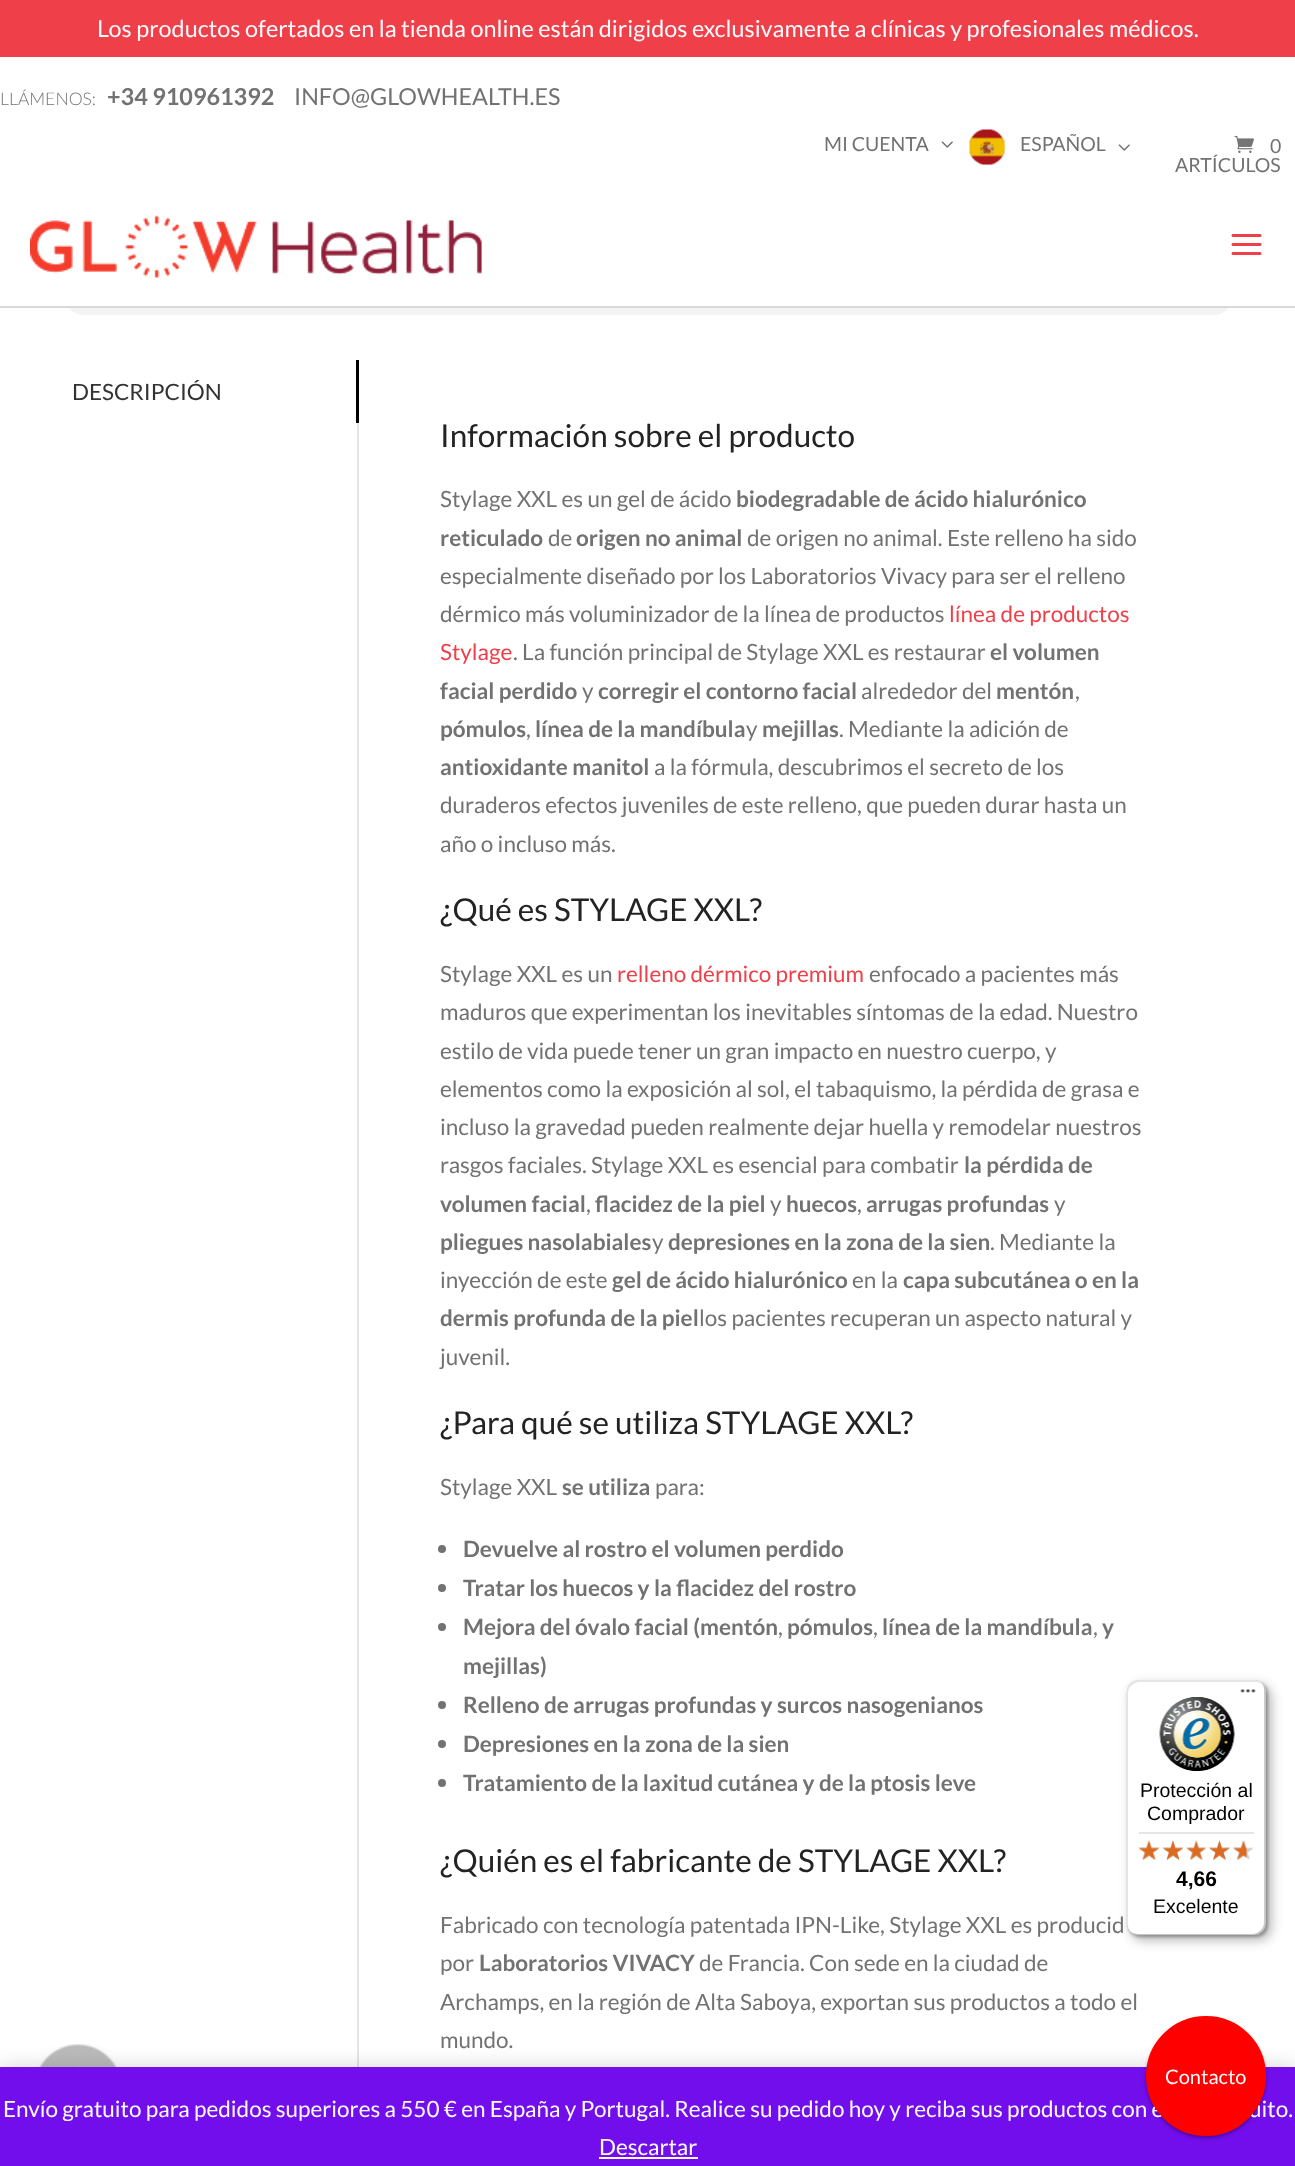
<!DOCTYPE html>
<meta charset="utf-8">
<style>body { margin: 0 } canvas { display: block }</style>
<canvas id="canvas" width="1295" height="2166"></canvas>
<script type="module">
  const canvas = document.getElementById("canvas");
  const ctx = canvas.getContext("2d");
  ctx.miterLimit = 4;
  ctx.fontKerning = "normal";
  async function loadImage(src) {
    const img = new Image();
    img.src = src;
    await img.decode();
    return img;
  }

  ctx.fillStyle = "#ffffff";
  ctx.fillRect(0, 0, 1295, 2166);
  ctx.fillStyle = "#f4f4f4";
  ctx.beginPath();
  ctx.roundRect(65, -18, 1167, 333, 18);
  ctx.fill();
  ctx.fillStyle = "#ef3f49";
  ctx.fillRect(0, 0, 1295, 57);
  ctx.font = "23.4px Lato";
  ctx.fillStyle = "#fcfbfe";
  ctx.fillText("Los productos ofertados en la tienda online están dirigidos exclusivamente a clínicas y profesionales médicos.", 97, 37);
  ctx.fillStyle = "#ffffff";
  ctx.fillRect(65, 57, 1167, 249);
  ctx.font = "300 17.5px Lato";
  ctx.fillStyle = "#737272";
  ctx.fillText("LLÁMENOS:", 0, 105);
  ctx.font = "bold 23.4px Lato";
  ctx.fillText("+34 910961392", 107, 105);
  ctx.font = "23.4px Lato";
  ctx.fillText("INFO@GLOWHEALTH.ES", 294, 105);
  ctx.font = "19.5px Lato";
  ctx.fillText("MI CUENTA", 824, 151);
  ctx.drawImage(await loadImage("img1.png"), 941, 141, 12, 7);
  ctx.drawImage(await loadImage("img2.png"), 969, 129, 37, 37);
  ctx.fillText("ESPAÑOL", 1020, 151);
  ctx.drawImage(await loadImage("img1.png"), 1118, 144, 12, 7);
  ctx.drawImage(await loadImage("img3.png"), 1234, 135, 20, 18);
  ctx.fillText("0", 1270, 153);
  ctx.fillText("ARTÍCULOS", 1175, 172);
  ctx.fillStyle = "#d9d9d9";
  ctx.fillRect(0, 306, 1295, 2);
  ctx.drawImage(await loadImage("img4.png"), 30, 215, 452, 63);
  ctx.drawImage(await loadImage("img5.png"), 1231, 234, 31, 21);
  ctx.font = "22.5px Lato";
  ctx.fillStyle = "#333333";
  ctx.fillText("DESCRIPCIÓN", 72, 400);
  ctx.fillStyle = "#000000";
  ctx.fillRect(356, 360, 3, 63);
  ctx.fillStyle = "#e6e6e6";
  ctx.fillRect(357, 423, 2, 1644);
  ctx.font = "31.5px Lato";
  ctx.fillStyle = "#232323";
  ctx.fillText("Información sobre el producto", 440, 447);
  ctx.font = "22.5px Lato";
  ctx.fillStyle = "#737272";
  ctx.fillText("Stylage XXL es un gel de ácido", 440, 507);
  ctx.font = "bold 22.5px Lato";
  ctx.fillText("biodegradable de ácido hialurónico", 736, 507);
  ctx.fillText("reticulado", 440, 546);
  ctx.font = "22.5px Lato";
  ctx.fillText("de", 548, 546);
  ctx.font = "bold 22.5px Lato";
  ctx.fillText("origen no animal", 576, 546);
  ctx.font = "22.5px Lato";
  ctx.fillText("de origen no animal. Este relleno ha sido", 747, 546);
  ctx.fillText("especialmente diseñado por los Laboratorios Vivacy para ser el relleno", 440, 584);
  ctx.fillText("dérmico más voluminizador de la línea de productos", 440, 622);
  ctx.fillStyle = "#ef3f49";
  ctx.fillText("línea de productos", 949, 622);
  ctx.fillText("Stylage", 440, 660);
  ctx.fillStyle = "#737272";
  ctx.fillText(". La función principal de Stylage XXL es restaurar", 513, 660);
  ctx.font = "bold 22.5px Lato";
  ctx.fillText("el volumen", 990, 660);
  ctx.fillText("facial perdido", 440, 699);
  ctx.font = "22.5px Lato";
  ctx.fillText("y", 582, 699);
  ctx.font = "bold 22.5px Lato";
  ctx.fillText("corregir el contorno facial", 598, 699);
  ctx.font = "22.5px Lato";
  ctx.fillText("alrededor del", 861, 699);
  ctx.font = "bold 22.5px Lato";
  ctx.fillText("mentón", 996, 699);
  ctx.font = "22.5px Lato";
  ctx.fillText(",", 1075, 699);
  ctx.font = "bold 22.5px Lato";
  ctx.fillText("pómulos", 440, 737);
  ctx.font = "22.5px Lato";
  ctx.fillText(",", 526, 737);
  ctx.font = "bold 22.5px Lato";
  ctx.fillText("línea de la mandíbula", 535, 737);
  ctx.font = "22.5px Lato";
  ctx.fillText("y", 746, 737);
  ctx.font = "bold 22.5px Lato";
  ctx.fillText("mejillas", 762, 737);
  ctx.font = "22.5px Lato";
  ctx.fillText(". Mediante la adición de", 839, 737);
  ctx.font = "bold 22.5px Lato";
  ctx.fillText("antioxidante manitol", 440, 775);
  ctx.font = "22.5px Lato";
  ctx.fillText("a la fórmula, descubrimos el secreto de los", 654, 775);
  ctx.fillText("duraderos efectos juveniles de este relleno, que pueden durar hasta un", 440, 813);
  ctx.fillText("año o incluso más.", 440, 852);
  ctx.font = "31.5px Lato";
  ctx.fillStyle = "#232323";
  ctx.fillText("¿Qué es STYLAGE XXL?", 440, 921);
  ctx.font = "22.5px Lato";
  ctx.fillStyle = "#737272";
  ctx.fillText("Stylage XXL es un", 440, 982);
  ctx.fillStyle = "#ef3f49";
  ctx.fillText("relleno dérmico premium", 617, 982);
  ctx.fillStyle = "#737272";
  ctx.fillText("enfocado a pacientes más", 869, 982);
  ctx.fillText("maduros que experimentan los inevitables síntomas de la edad. Nuestro", 440, 1020);
  ctx.fillText("estilo de vida puede tener un gran impacto en nuestro cuerpo, y", 440, 1059);
  ctx.fillText("elementos como la exposición al sol, el tabaquismo, la pérdida de grasa e", 440, 1097);
  ctx.fillText("incluso la gravedad pueden realmente dejar huella y remodelar nuestros", 440, 1135);
  ctx.fillText("rasgos faciales. Stylage XXL es esencial para combatir", 440, 1173);
  ctx.font = "bold 22.5px Lato";
  ctx.fillText("la pérdida de", 964, 1173);
  ctx.fillText("volumen facial", 440, 1212);
  ctx.font = "22.5px Lato";
  ctx.fillText(",", 586, 1212);
  ctx.font = "bold 22.5px Lato";
  ctx.fillText("flacidez de la piel", 595, 1212);
  ctx.font = "22.5px Lato";
  ctx.fillText("y", 770, 1212);
  ctx.font = "bold 22.5px Lato";
  ctx.fillText("huecos", 786, 1212);
  ctx.font = "22.5px Lato";
  ctx.fillText(",", 857, 1212);
  ctx.font = "bold 22.5px Lato";
  ctx.fillText("arrugas profundas", 866, 1212);
  ctx.font = "22.5px Lato";
  ctx.fillText("y", 1054, 1212);
  ctx.font = "bold 22.5px Lato";
  ctx.fillText("pliegues nasolabiales", 440, 1250);
  ctx.font = "22.5px Lato";
  ctx.fillText("y", 652, 1250);
  ctx.font = "bold 22.5px Lato";
  ctx.fillText("depresiones en la zona de la sien", 668, 1250);
  ctx.font = "22.5px Lato";
  ctx.fillText(". Mediante la", 990, 1250);
  ctx.fillText("inyección de este", 440, 1288);
  ctx.font = "bold 22.5px Lato";
  ctx.fillText("gel de ácido hialurónico", 612, 1288);
  ctx.font = "22.5px Lato";
  ctx.fillText("en la", 852, 1288);
  ctx.font = "bold 22.5px Lato";
  ctx.fillText("capa subcutánea o en la", 903, 1288);
  ctx.fillText("dermis profunda de la piel", 440, 1326);
  ctx.font = "22.5px Lato";
  ctx.fillText("los pacientes recuperan un aspecto natural y", 699, 1326);
  ctx.fillText("juvenil.", 440, 1365);
  ctx.font = "31.5px Lato";
  ctx.fillStyle = "#232323";
  ctx.fillText("¿Para qué se utiliza STYLAGE XXL?", 440, 1434);
  ctx.font = "22.5px Lato";
  ctx.fillStyle = "#737272";
  ctx.fillText("Stylage XXL", 440, 1495);
  ctx.font = "bold 22.5px Lato";
  ctx.fillText("se utiliza", 562, 1495);
  ctx.font = "22.5px Lato";
  ctx.fillText("para:", 655, 1495);
  ctx.beginPath();
  ctx.arc(442, 1549, 4, 0, Math.PI * 2);
  ctx.fill();
  ctx.font = "bold 22.5px Lato";
  ctx.fillText("Devuelve al rostro el volumen perdido", 463, 1557);
  ctx.beginPath();
  ctx.arc(442, 1588, 4, 0, Math.PI * 2);
  ctx.fill();
  ctx.fillText("Tratar los huecos y la flacidez del rostro", 463, 1596);
  ctx.beginPath();
  ctx.arc(442, 1627, 4, 0, Math.PI * 2);
  ctx.fill();
  ctx.fillText("Mejora del óvalo facial (mentón", 463, 1635);
  ctx.font = "22.5px Lato";
  ctx.fillText(",", 778, 1635);
  ctx.font = "bold 22.5px Lato";
  ctx.fillText("pómulos", 787, 1635);
  ctx.font = "22.5px Lato";
  ctx.fillText(",", 873, 1635);
  ctx.font = "bold 22.5px Lato";
  ctx.fillText("línea de la mandíbula", 882, 1635);
  ctx.font = "22.5px Lato";
  ctx.fillText(",", 1093, 1635);
  ctx.font = "bold 22.5px Lato";
  ctx.fillText("y", 1102, 1635);
  ctx.fillText("mejillas)", 463, 1674);
  ctx.beginPath();
  ctx.arc(442, 1705, 4, 0, Math.PI * 2);
  ctx.fill();
  ctx.fillText("Relleno de arrugas profundas y surcos nasogenianos", 463, 1713);
  ctx.beginPath();
  ctx.arc(442, 1744, 4, 0, Math.PI * 2);
  ctx.fill();
  ctx.fillText("Depresiones en la zona de la sien", 463, 1752);
  ctx.beginPath();
  ctx.arc(442, 1783, 4, 0, Math.PI * 2);
  ctx.fill();
  ctx.fillText("Tratamiento de la laxitud cutánea y de la ptosis leve", 463, 1791);
  ctx.font = "31.5px Lato";
  ctx.fillStyle = "#232323";
  ctx.fillText("¿Quién es el fabricante de STYLAGE XXL?", 440, 1872);
  ctx.font = "22.5px Lato";
  ctx.fillStyle = "#737272";
  ctx.fillText("Fabricado con tecnología patentada IPN-Like, Stylage XXL es producid", 440, 1933);
  ctx.fillText("por", 440, 1971);
  ctx.font = "bold 22.5px Lato";
  ctx.fillText("Laboratorios VIVACY", 479, 1971);
  ctx.font = "22.5px Lato";
  ctx.fillText("de Francia. Con sede en la ciudad de", 699, 1971);
  ctx.fillText("Archamps, en la región de Alta Saboya, exportan sus productos a todo el", 440, 2010);
  ctx.fillText("mundo.", 440, 2048);
  ctx.fillStyle = "rgba(0, 0, 0, 0.15)";
  ctx.filter = "blur(6px)";
  ctx.beginPath();
  ctx.roundRect(1131, 1685, 140, 255, 12);
  ctx.fill();
  ctx.filter = "none";
  ctx.filter = "blur(1.5px)";
  ctx.beginPath();
  ctx.roundRect(1128, 1682, 140, 255, 12);
  ctx.fill();
  ctx.filter = "none";
  ctx.fillStyle = "rgba(0, 0, 0, 0.1)";
  ctx.beginPath();
  ctx.moveTo(1140, 1682);
  ctx.lineTo(1256, 1682);
  ctx.bezierCurveTo(1259, 1682, 1261, 1683, 1264, 1685);
  ctx.bezierCurveTo(1261, 1682, 1258, 1680, 1254, 1680);
  ctx.lineTo(1139, 1680);
  ctx.bezierCurveTo(1132, 1680, 1127, 1685, 1127, 1692);
  ctx.lineTo(1127, 1923);
  ctx.bezierCurveTo(1127, 1926, 1128, 1929, 1130, 1931);
  ctx.bezierCurveTo(1129, 1929, 1128, 1927, 1128, 1924);
  ctx.lineTo(1128, 1694);
  ctx.bezierCurveTo(1128, 1687, 1133, 1682, 1140, 1682);
  ctx.closePath();
  ctx.fill();
  ctx.fillStyle = "rgba(0, 0, 0, 0.2)";
  ctx.beginPath();
  ctx.moveTo(1133, 1933);
  ctx.bezierCurveTo(1134, 1934, 1137, 1935, 1139, 1935);
  ctx.lineTo(1254, 1935);
  ctx.bezierCurveTo(1261, 1935, 1266, 1930, 1266, 1923);
  ctx.lineTo(1266, 1692);
  ctx.bezierCurveTo(1266, 1688, 1264, 1685, 1261, 1682);
  ctx.bezierCurveTo(1263, 1685, 1264, 1687, 1264, 1690);
  ctx.lineTo(1264, 1922);
  ctx.bezierCurveTo(1264, 1928, 1259, 1934, 1252, 1934);
  ctx.lineTo(1137, 1934);
  ctx.closePath();
  ctx.fill();
  ctx.fillStyle = "rgba(50, 50, 50, 0.2)";
  ctx.beginPath();
  ctx.moveTo(1131, 1932);
  ctx.bezierCurveTo(1133, 1934, 1136, 1935, 1139, 1935);
  ctx.lineTo(1254, 1935);
  ctx.bezierCurveTo(1261, 1935, 1266, 1930, 1266, 1923);
  ctx.lineTo(1266, 1692);
  ctx.bezierCurveTo(1266, 1689, 1265, 1686, 1263, 1684);
  ctx.bezierCurveTo(1264, 1686, 1265, 1688, 1265, 1691);
  ctx.lineTo(1265, 1922);
  ctx.bezierCurveTo(1265, 1929, 1260, 1934, 1253, 1934);
  ctx.lineTo(1138, 1934);
  ctx.bezierCurveTo(1135, 1934, 1133, 1933, 1131, 1932);
  ctx.closePath();
  ctx.fill();
  ctx.fillStyle = "rgba(255, 255, 255, 0.3)";
  ctx.beginPath();
  ctx.moveTo(1131, 1932);
  ctx.bezierCurveTo(1133, 1934, 1136, 1935, 1139, 1935);
  ctx.lineTo(1254, 1935);
  ctx.bezierCurveTo(1261, 1935, 1266, 1930, 1266, 1923);
  ctx.lineTo(1266, 1692);
  ctx.bezierCurveTo(1266, 1688, 1264, 1685, 1262, 1683);
  ctx.bezierCurveTo(1264, 1685, 1265, 1688, 1265, 1691);
  ctx.lineTo(1265, 1922);
  ctx.bezierCurveTo(1265, 1929, 1260, 1934, 1253, 1934);
  ctx.lineTo(1138, 1934);
  ctx.bezierCurveTo(1135, 1934, 1133, 1933, 1131, 1932);
  ctx.closePath();
  ctx.fill();
  ctx.fillStyle = "rgba(0, 0, 0, 0.15)";
  ctx.filter = "blur(6px)";
  ctx.beginPath();
  ctx.roundRect(1131, 1685, 140, 255, 12);
  ctx.fill();
  ctx.filter = "none";
  ctx.filter = "blur(1.5px)";
  ctx.beginPath();
  ctx.roundRect(1128, 1682, 140, 255, 12);
  ctx.fill();
  ctx.filter = "none";
  ctx.fillStyle = "#ffffff";
  ctx.beginPath();
  ctx.roundRect(1127, 1680, 139, 255, 12);
  ctx.fill();
  ctx.fillStyle = "rgba(0, 0, 0, 0.1)";
  ctx.beginPath();
  ctx.moveTo(1140, 1682);
  ctx.lineTo(1256, 1682);
  ctx.bezierCurveTo(1259, 1682, 1261, 1683, 1264, 1685);
  ctx.bezierCurveTo(1261, 1682, 1258, 1680, 1254, 1680);
  ctx.lineTo(1139, 1680);
  ctx.bezierCurveTo(1132, 1680, 1127, 1685, 1127, 1692);
  ctx.lineTo(1127, 1923);
  ctx.bezierCurveTo(1127, 1926, 1128, 1929, 1130, 1931);
  ctx.bezierCurveTo(1129, 1929, 1128, 1927, 1128, 1924);
  ctx.lineTo(1128, 1694);
  ctx.bezierCurveTo(1128, 1687, 1133, 1682, 1140, 1682);
  ctx.closePath();
  ctx.fill();
  ctx.fillStyle = "rgba(0, 0, 0, 0.2)";
  ctx.beginPath();
  ctx.moveTo(1133, 1933);
  ctx.bezierCurveTo(1134, 1934, 1137, 1935, 1139, 1935);
  ctx.lineTo(1254, 1935);
  ctx.bezierCurveTo(1261, 1935, 1266, 1930, 1266, 1923);
  ctx.lineTo(1266, 1692);
  ctx.bezierCurveTo(1266, 1688, 1264, 1685, 1261, 1682);
  ctx.bezierCurveTo(1263, 1685, 1264, 1687, 1264, 1690);
  ctx.lineTo(1264, 1922);
  ctx.bezierCurveTo(1264, 1928, 1259, 1934, 1252, 1934);
  ctx.lineTo(1137, 1934);
  ctx.closePath();
  ctx.fill();
  ctx.fillStyle = "rgba(50, 50, 50, 0.2)";
  ctx.beginPath();
  ctx.moveTo(1131, 1932);
  ctx.bezierCurveTo(1133, 1934, 1136, 1935, 1139, 1935);
  ctx.lineTo(1254, 1935);
  ctx.bezierCurveTo(1261, 1935, 1266, 1930, 1266, 1923);
  ctx.lineTo(1266, 1692);
  ctx.bezierCurveTo(1266, 1689, 1265, 1686, 1263, 1684);
  ctx.bezierCurveTo(1264, 1686, 1265, 1688, 1265, 1691);
  ctx.lineTo(1265, 1922);
  ctx.bezierCurveTo(1265, 1929, 1260, 1934, 1253, 1934);
  ctx.lineTo(1138, 1934);
  ctx.bezierCurveTo(1135, 1934, 1133, 1933, 1131, 1932);
  ctx.closePath();
  ctx.fill();
  ctx.fillStyle = "rgba(255, 255, 255, 0.3)";
  ctx.beginPath();
  ctx.moveTo(1131, 1932);
  ctx.bezierCurveTo(1133, 1934, 1136, 1935, 1139, 1935);
  ctx.lineTo(1254, 1935);
  ctx.bezierCurveTo(1261, 1935, 1266, 1930, 1266, 1923);
  ctx.lineTo(1266, 1692);
  ctx.bezierCurveTo(1266, 1688, 1264, 1685, 1262, 1683);
  ctx.bezierCurveTo(1264, 1685, 1265, 1688, 1265, 1691);
  ctx.lineTo(1265, 1922);
  ctx.bezierCurveTo(1265, 1929, 1260, 1934, 1253, 1934);
  ctx.lineTo(1138, 1934);
  ctx.bezierCurveTo(1135, 1934, 1133, 1933, 1131, 1932);
  ctx.closePath();
  ctx.fill();
  ctx.drawImage(await loadImage("img6.png"), 1240, 1689, 16, 4);
  ctx.drawImage(await loadImage("img7.png"), 1159, 1697, 76, 75);
  ctx.font = "19.5px Liberation Sans";
  ctx.fillStyle = "#000000";
  ctx.fillText("Protección al", 1140, 1797);
  ctx.fillText("Comprador", 1147, 1820);
  ctx.fillStyle = "#e5e5e5";
  ctx.fillRect(1139, 1832, 115, 2);
  ctx.drawImage(await loadImage("img13.png"), 1139, 1841, 20, 19);
  ctx.drawImage(await loadImage("img8.png"), 1138, 1840, 22, 20);
  ctx.drawImage(await loadImage("img14.png"), 1163, 1840, 20, 20);
  ctx.drawImage(await loadImage("img9.png"), 1163, 1840, 20, 20);
  ctx.drawImage(await loadImage("img15.png"), 1186, 1840, 20, 20);
  ctx.drawImage(await loadImage("img10.png"), 1186, 1840, 20, 20);
  ctx.drawImage(await loadImage("img16.png"), 1209, 1840, 21, 20);
  ctx.drawImage(await loadImage("img11.png"), 1209, 1840, 21, 20);
  ctx.drawImage(await loadImage("img17.png"), 1233, 1841, 21, 19);
  ctx.drawImage(await loadImage("img12.png"), 1233, 1840, 14, 20);
  ctx.font = "bold 21px Liberation Sans";
  ctx.fillStyle = "#000000";
  ctx.fillText("4,66", 1176, 1886);
  ctx.font = "19.5px Liberation Sans";
  ctx.fillText("Excelente", 1153, 1913);
  ctx.drawImage(await loadImage("img18.png"), 34, 2044, 88, 23);
  ctx.fillStyle = "rgba(0, 0, 0, 0.2)";
  ctx.filter = "blur(11px)";
  ctx.beginPath();
  ctx.rect(0, 2069, 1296, 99);
  ctx.fill();
  ctx.filter = "none";
  ctx.fillStyle = "#720eec";
  ctx.fillRect(0, 2067, 1295, 99);
  ctx.fillStyle = "rgba(0, 0, 0, 0.24)";
  ctx.filter = "blur(1.5px)";
  ctx.beginPath();
  ctx.roundRect(1146, 2018, 120, 120, 60);
  ctx.fill();
  ctx.filter = "none";
  ctx.fillStyle = "rgba(0, 0, 0, 0.12)";
  ctx.filter = "blur(2px)";
  ctx.beginPath();
  ctx.roundRect(1146, 2018, 120, 120, 60);
  ctx.fill();
  ctx.filter = "none";
  ctx.font = "22.5px Lato";
  ctx.fillStyle = "#fcfbfe";
  ctx.fillText("Envío gratuito para pedidos superiores a 550 € en España y Portugal. Realice su pedido hoy y reciba sus productos con e", 3, 2117);
  ctx.fillText("uito.", 1249, 2117);
  ctx.fillStyle = "#ff0000";
  ctx.beginPath();
  ctx.arc(1206, 2076, 57.5, 0, Math.PI * 2);
  ctx.fill();
  ctx.strokeStyle = "#ff0000";
  ctx.lineWidth = 5;
  ctx.stroke();
  ctx.font = "20px Lato";
  ctx.fillStyle = "#fcfbfe";
  ctx.fillText("Contacto", 1165, 2084);
  ctx.font = "22.5px Lato";
  ctx.fillText("Descartar", 599, 2155);
  ctx.fillRect(599, 2157, 99, 2);
</script>
